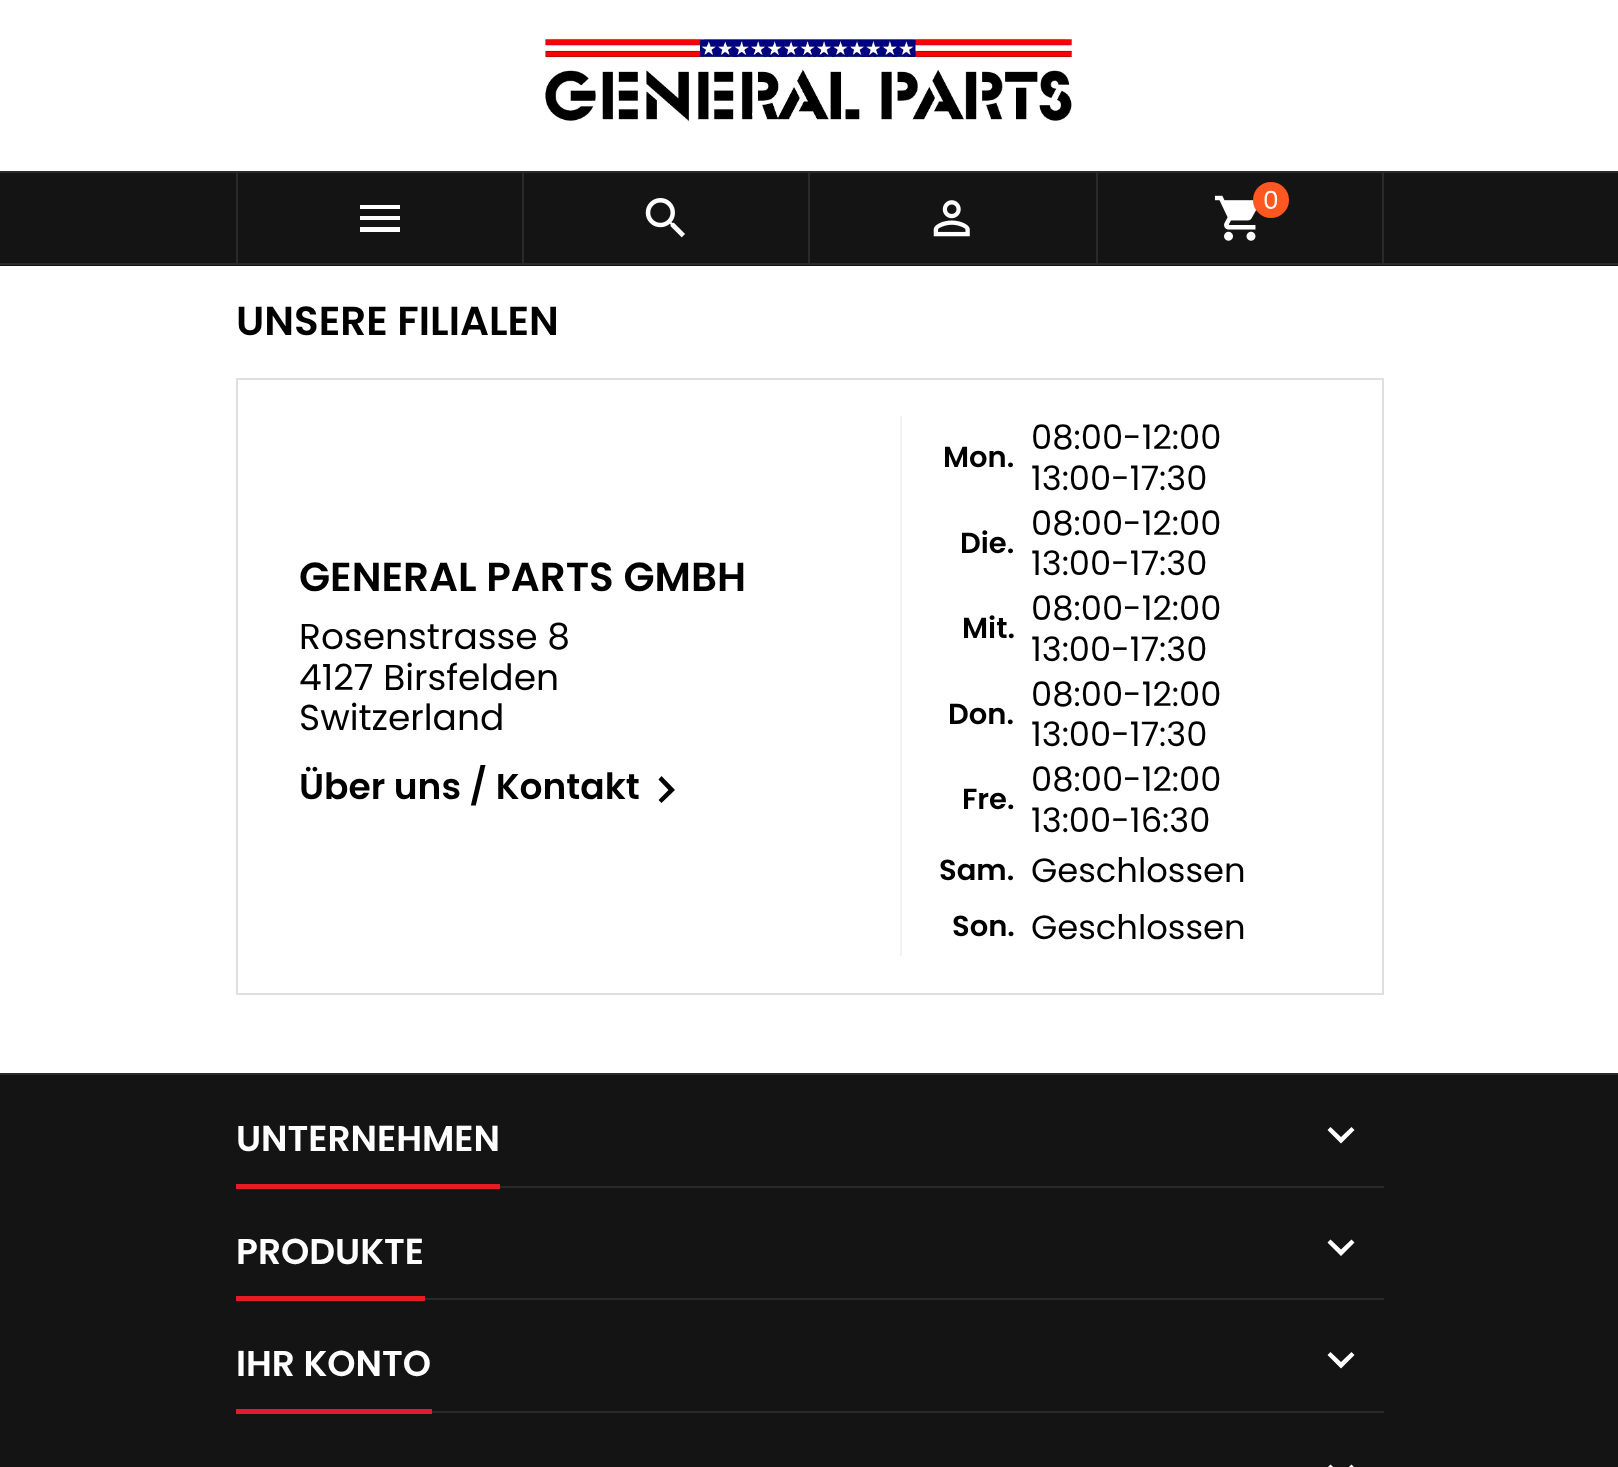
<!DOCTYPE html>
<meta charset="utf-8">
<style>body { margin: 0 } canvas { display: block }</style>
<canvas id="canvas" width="1618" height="1467"></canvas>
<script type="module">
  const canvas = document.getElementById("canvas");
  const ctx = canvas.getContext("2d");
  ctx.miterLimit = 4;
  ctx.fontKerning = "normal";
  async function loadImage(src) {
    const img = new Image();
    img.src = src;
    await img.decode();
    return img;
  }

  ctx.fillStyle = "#ffffff";
  ctx.fillRect(0, 0, 1618, 1467);
  ctx.drawImage(await loadImage("img1.png"), 545, 37, 528, 85);
  ctx.fillStyle = "#141414";
  ctx.fillRect(0, 173, 1618, 93);
  ctx.fillStyle = "#2b292b";
  ctx.fillRect(0, 171, 1618, 2);
  ctx.fillRect(0, 263, 1618, 2);
  ctx.fillRect(522, 173, 2, 90);
  ctx.fillRect(236, 173, 2, 90);
  ctx.fillStyle = "#ffffff";
  ctx.beginPath();
  ctx.moveTo(360, 205);
  ctx.lineTo(400, 205);
  ctx.lineTo(400, 209);
  ctx.lineTo(360, 209);
  ctx.closePath();
  ctx.moveTo(360, 220);
  ctx.lineTo(360, 216);
  ctx.lineTo(400, 216);
  ctx.lineTo(400, 220);
  ctx.closePath();
  ctx.moveTo(360, 232);
  ctx.lineTo(360, 227);
  ctx.lineTo(400, 227);
  ctx.lineTo(400, 232);
  ctx.closePath();
  ctx.fill();
  ctx.fillStyle = "#2b292b";
  ctx.fillRect(808, 173, 2, 90);
  ctx.drawImage(await loadImage("img2.png"), 645, 198, 40, 40);
  ctx.fillRect(1096, 173, 2, 90);
  ctx.drawImage(await loadImage("img3.png"), 933, 200, 37, 37);
  ctx.fillRect(1382, 173, 2, 90);
  ctx.drawImage(await loadImage("img4.png"), 1214, 195, 43, 46);
  ctx.fillStyle = "#ff5722";
  ctx.beginPath();
  ctx.arc(1271, 200, 18, 0, Math.PI * 2);
  ctx.fill();
  ctx.font = "25px Poppins";
  ctx.fillStyle = "#ffffff";
  ctx.fillText("0", 1263, 209);
  ctx.font = "600 40.5px Poppins";
  ctx.fillStyle = "#000000";
  ctx.fillText("UNSERE FILIALEN", 236, 335);
  ctx.strokeStyle = "#dfdfdf";
  ctx.lineWidth = 2;
  ctx.strokeRect(237, 379, 1146, 615);
  ctx.fillText("GENERAL PARTS GMBH", 299, 591);
  ctx.font = "36px Poppins";
  ctx.fillText("Rosenstrasse 8", 299, 649);
  ctx.fillText("4127 Birsfelden", 299, 690);
  ctx.fillText("Switzerland", 299, 730);
  ctx.font = "600 36px Poppins";
  ctx.fillText("Über uns / Kontakt", 299, 799);
  ctx.beginPath();
  ctx.moveTo(661.5, 776);
  ctx.lineTo(675, 790);
  ctx.lineTo(661.5, 803);
  ctx.lineTo(658.5, 800);
  ctx.lineTo(668.5, 790);
  ctx.lineTo(658.5, 779.5);
  ctx.closePath();
  ctx.fill();
  ctx.fillStyle = "#f1f1f1";
  ctx.fillRect(900, 416, 2, 540);
  ctx.font = "600 29px Poppins";
  ctx.fillStyle = "#000000";
  ctx.fillText("Mon.", 943, 467);
  ctx.font = "33.75px Poppins";
  ctx.fillText("08:00-12:00", 1031, 449);
  ctx.fillText("13:00-17:30", 1031, 490);
  ctx.font = "600 29px Poppins";
  ctx.fillText("Die.", 960, 553);
  ctx.font = "33.75px Poppins";
  ctx.fillText("08:00-12:00", 1031, 535);
  ctx.fillText("13:00-17:30", 1031, 575);
  ctx.font = "600 29px Poppins";
  ctx.fillText("Mit.", 962, 638);
  ctx.font = "33.75px Poppins";
  ctx.fillText("08:00-12:00", 1031, 620);
  ctx.fillText("13:00-17:30", 1031, 661);
  ctx.font = "600 29px Poppins";
  ctx.fillText("Don.", 948, 724);
  ctx.font = "33.75px Poppins";
  ctx.fillText("08:00-12:00", 1031, 706);
  ctx.fillText("13:00-17:30", 1031, 746);
  ctx.font = "600 29px Poppins";
  ctx.fillText("Fre.", 962, 809);
  ctx.font = "33.75px Poppins";
  ctx.fillText("08:00-12:00", 1031, 791);
  ctx.fillText("13:00-16:30", 1031, 832);
  ctx.font = "600 29px Poppins";
  ctx.fillText("Sam.", 939, 880);
  ctx.font = "33.75px Poppins";
  ctx.fillText("Geschlossen", 1031, 882);
  ctx.font = "600 29px Poppins";
  ctx.fillText("Son.", 952, 936);
  ctx.font = "33.75px Poppins";
  ctx.fillText("Geschlossen", 1031, 939);
  ctx.fillStyle = "#141414";
  ctx.fillRect(0, 1075, 1618, 392);
  ctx.fillStyle = "#292929";
  ctx.fillRect(0, 1073, 1618, 2);
  ctx.fillRect(500, 1186, 884, 2);
  ctx.fillStyle = "#e31d27";
  ctx.fillRect(236, 1184, 264, 5);
  ctx.font = "600 36px Poppins";
  ctx.fillStyle = "#ffffff";
  ctx.fillText("UNTERNEHMEN", 236, 1151);
  ctx.beginPath();
  ctx.moveTo(1330.5, 1127);
  ctx.lineTo(1341, 1137);
  ctx.lineTo(1351.5, 1127);
  ctx.lineTo(1354.5, 1130);
  ctx.lineTo(1341, 1143.5);
  ctx.lineTo(1327.5, 1130);
  ctx.closePath();
  ctx.fill();
  ctx.fillStyle = "#292929";
  ctx.fillRect(425, 1298, 959, 2);
  ctx.fillStyle = "#e31d27";
  ctx.fillRect(236, 1296, 189, 5);
  ctx.fillStyle = "#ffffff";
  ctx.fillText("PRODUKTE", 236, 1264);
  ctx.beginPath();
  ctx.moveTo(1330.5, 1239.5);
  ctx.lineTo(1341, 1249.5);
  ctx.lineTo(1351.5, 1239.5);
  ctx.lineTo(1354.5, 1242.5);
  ctx.lineTo(1341, 1256);
  ctx.lineTo(1327.5, 1242.5);
  ctx.closePath();
  ctx.fill();
  ctx.fillStyle = "#292929";
  ctx.fillRect(432, 1411, 952, 2);
  ctx.fillStyle = "#e31d27";
  ctx.fillRect(236, 1409, 196, 5);
  ctx.fillStyle = "#ffffff";
  ctx.fillText("IHR KONTO", 236, 1376);
  ctx.beginPath();
  ctx.moveTo(1330.5, 1352);
  ctx.lineTo(1341, 1362);
  ctx.lineTo(1351.5, 1352);
  ctx.lineTo(1354.5, 1355);
  ctx.lineTo(1341, 1368.5);
  ctx.lineTo(1327.5, 1355);
  ctx.closePath();
  ctx.fill();
  ctx.beginPath();
  ctx.moveTo(1330.5, 1464.5);
  ctx.lineTo(1341, 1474.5);
  ctx.lineTo(1351.5, 1464.5);
  ctx.lineTo(1354.5, 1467.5);
  ctx.lineTo(1341, 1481);
  ctx.lineTo(1327.5, 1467.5);
  ctx.closePath();
  ctx.fill();
</script>
